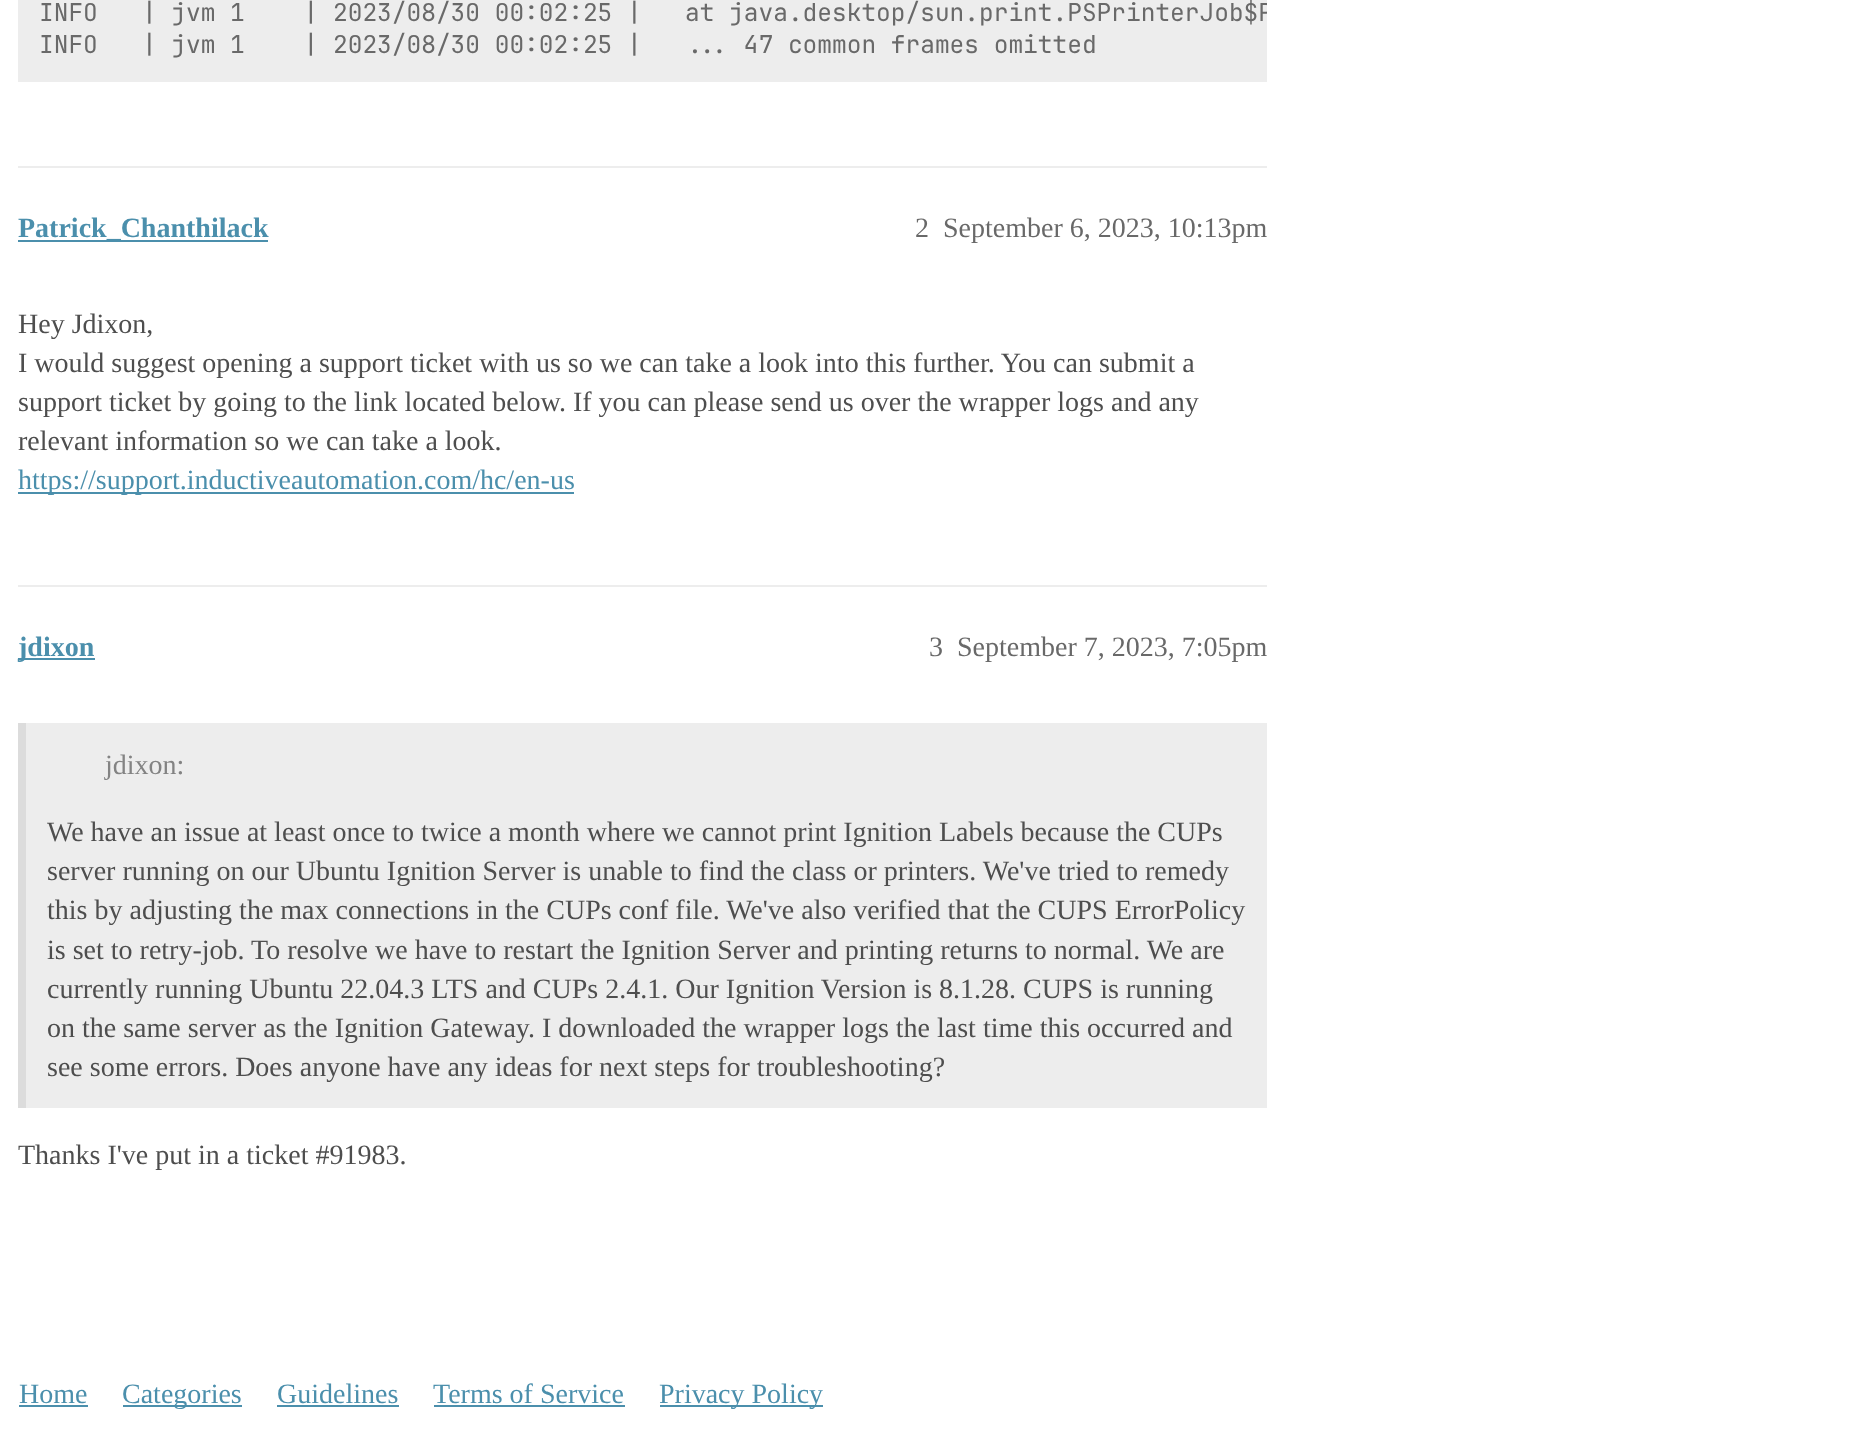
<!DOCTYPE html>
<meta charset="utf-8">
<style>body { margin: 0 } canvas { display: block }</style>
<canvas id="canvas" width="1873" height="1429"></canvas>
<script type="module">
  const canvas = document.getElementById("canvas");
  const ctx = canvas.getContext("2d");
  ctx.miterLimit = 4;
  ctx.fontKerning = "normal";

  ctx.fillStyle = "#ffffff";
  ctx.fillRect(0, 0, 1873, 1429);
  ctx.fillStyle = "#ededed";
  ctx.fillRect(18, 0, 1249, 82);
  ctx.font = "24.5px JetBrains Mono";
  ctx.fillStyle = "#696969";
  ctx.fillText("INFO   | jvm 1    | 2023/08/30 00:02:25 |", 39, 21);
  ctx.save();
  ctx.beginPath();
  ctx.roundRect(18, -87, 1249, 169, 7);
  ctx.clip();
  ctx.fillText("at java.desktop/sun.print.PSPrinterJob$P", 685, 21);
  ctx.restore();
  ctx.fillText("INFO   | jvm 1    | 2023/08/30 00:02:25 |", 39, 53);
  ctx.fillText("... 47 common frames omitted", 685, 53);
  ctx.fillStyle = "#ededed";
  ctx.fillRect(18, 166, 1249, 2);
  ctx.fillStyle = "#4b8fac";
  ctx.fillRect(18, 240, 250, 2);
  ctx.font = "bold 28px Liberation Serif";
  ctx.fillText("Patrick_Chanthilack", 18, 237);
  ctx.font = "28px Liberation Serif";
  ctx.fillStyle = "#696969";
  ctx.fillText("2", 915, 237);
  ctx.fillText("September 6, 2023, 10:13pm", 943, 237);
  ctx.fillStyle = "#4e4e4e";
  ctx.fillText("Hey Jdixon,", 18, 333);
  ctx.fillText("I would suggest opening a support ticket with us so we can take a look into this further. You can submit a", 18, 372);
  ctx.fillText("support ticket by going to the link located below. If you can please send us over the wrapper logs and any", 18, 411);
  ctx.fillText("relevant information so we can take a look.", 18, 450);
  ctx.fillStyle = "#4b8fac";
  ctx.fillRect(18, 492, 556, 2);
  ctx.fillText("https://support.inductiveautomation.com/hc/en-us", 18, 489);
  ctx.fillStyle = "#ededed";
  ctx.fillRect(18, 585, 1249, 2);
  ctx.fillStyle = "#4b8fac";
  ctx.fillRect(18, 658, 77, 2);
  ctx.font = "bold 28px Liberation Serif";
  ctx.fillText("jdixon", 18, 656);
  ctx.font = "28px Liberation Serif";
  ctx.fillStyle = "#696969";
  ctx.fillText("3", 929, 656);
  ctx.fillText("September 7, 2023, 7:05pm", 957, 656);
  ctx.fillStyle = "#ededed";
  ctx.fillRect(26, 723, 1241, 385);
  ctx.fillStyle = "#dcdcdc";
  ctx.fillRect(18, 723, 8, 385);
  ctx.fillStyle = "#838383";
  ctx.fillText("jdixon:", 105, 774);
  ctx.fillStyle = "#4e4e4e";
  ctx.fillText("We have an issue at least once to twice a month where we cannot print Ignition Labels because the CUPs", 47, 841);
  ctx.fillText("server running on our Ubuntu Ignition Server is unable to find the class or printers. We've tried to remedy", 47, 880);
  ctx.fillText("this by adjusting the max connections in the CUPs conf file. We've also verified that the CUPS ErrorPolicy", 47, 919);
  ctx.fillText("is set to retry-job. To resolve we have to restart the Ignition Server and printing returns to normal. We are", 47, 959);
  ctx.fillText("currently running Ubuntu 22.04.3 LTS and CUPs 2.4.1. Our Ignition Version is 8.1.28. CUPS is running", 47, 998);
  ctx.fillText("on the same server as the Ignition Gateway. I downloaded the wrapper logs the last time this occurred and", 47, 1037);
  ctx.fillText("see some errors. Does anyone have any ideas for next steps for troubleshooting?", 47, 1076);
  ctx.fillText("Thanks I've put in a ticket #91983.", 18, 1164);
  ctx.fillStyle = "#4b8fac";
  ctx.fillText("Home", 19, 1403);
  ctx.fillRect(19, 1405, 69, 2);
  ctx.fillRect(123, 1405, 119, 2);
  ctx.fillText("Categories", 122, 1403);
  ctx.fillText("Guidelines", 277, 1403);
  ctx.fillRect(277, 1405, 122, 2);
  ctx.fillText("Terms of Service", 433, 1403);
  ctx.fillRect(434, 1405, 191, 2);
  ctx.fillRect(660, 1405, 163, 2);
  ctx.fillText("Privacy Policy", 659, 1403);
</script>
